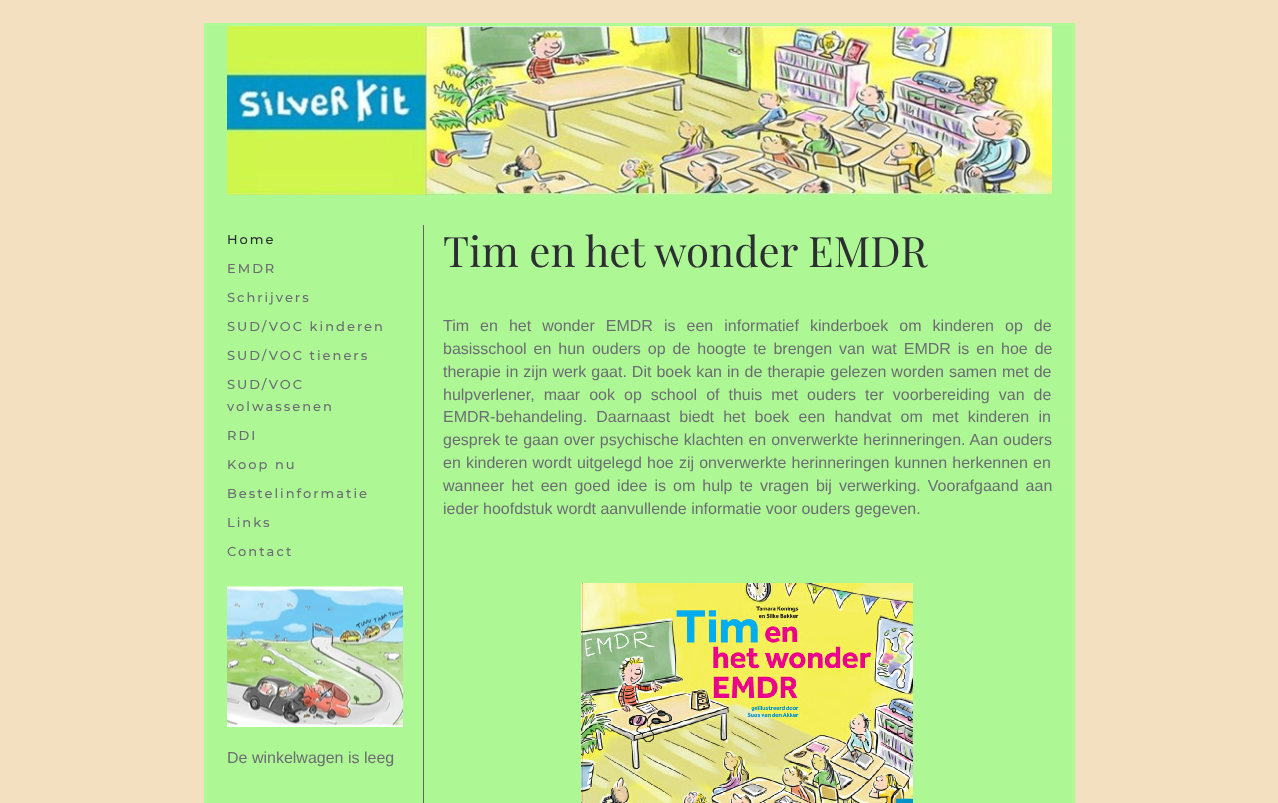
<!DOCTYPE html>
<meta charset="utf-8">
<style>body { margin: 0 } canvas { display: block }</style>
<canvas id="canvas" width="1278" height="803"></canvas>
<script type="module">
  const canvas = document.getElementById("canvas");
  const ctx = canvas.getContext("2d");
  ctx.miterLimit = 4;
  ctx.fontKerning = "normal";
  async function loadImage(src) {
    const img = new Image();
    img.src = src;
    await img.decode();
    return img;
  }

  ctx.fillStyle = "#f3e0c0";
  ctx.fillRect(0, 0, 1278, 803);
  ctx.fillStyle = "#adf794";
  ctx.beginPath();
  ctx.rect(205.5, 24.5, 868, 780);
  ctx.fill();
  ctx.strokeStyle = "#affb95";
  ctx.lineWidth = 3;
  ctx.stroke();
  ctx.drawImage(await loadImage("img1.png"), 227, 26, 825, 169);
  ctx.letterSpacing = "2px";
  ctx.font = "100 13px Montserrat";
  ctx.fillStyle = "#2d2e33";
  ctx.fillText("Home", 227, 244);
  ctx.fillStyle = "#6c6d74";
  ctx.fillText("EMDR", 227, 273);
  ctx.fillText("Schrijvers", 227, 302);
  ctx.fillText("SUD/VOC kinderen", 227, 331);
  ctx.fillText("SUD/VOC tieners", 227, 360);
  ctx.fillText("SUD/VOC", 227, 389);
  ctx.fillText("volwassenen", 227, 411);
  ctx.fillText("RDI", 227, 440);
  ctx.fillText("Koop nu", 227, 469);
  ctx.fillText("Bestelinformatie", 227, 498);
  ctx.fillText("Links", 227, 527);
  ctx.fillText("Contact", 227, 556);
  ctx.drawImage(await loadImage("img2.png"), 227, 586, 176, 141);
  ctx.letterSpacing = "0px";
  ctx.font = "16px Liberation Sans";
  ctx.fillText("De winkelwagen is leeg", 227, 763);
  ctx.fillStyle = "#636363";
  ctx.fillRect(423, 225, 1, 578);
  ctx.font = "42px Playfair Display";
  ctx.fillStyle = "#2d2e33";
  ctx.fillText("Tim en het wonder EMDR", 443, 267);
  ctx.wordSpacing = "6.6px";
  ctx.font = "16px Liberation Sans";
  ctx.fillStyle = "#6c6d74";
  ctx.fillText("Tim en het wonder EMDR is een informatief kinderboek om kinderen op de", 443, 331);
  ctx.wordSpacing = "2.5px";
  ctx.fillText("basisschool en hun ouders op de hoogte te brengen van wat EMDR is en hoe de", 443, 354);
  ctx.wordSpacing = "0.6px";
  ctx.fillText("therapie in zijn werk gaat. Dit boek kan in de therapie gelezen worden samen met de", 443, 377);
  ctx.wordSpacing = "4.6px";
  ctx.fillText("hulpverlener, maar ook op school of thuis met ouders ter voorbereiding van de", 443, 400);
  ctx.wordSpacing = "4.75px";
  ctx.fillText("EMDR-behandeling. Daarnaast biedt het boek een handvat om met kinderen in", 443, 422);
  ctx.wordSpacing = "0.5px";
  ctx.fillText("gesprek te gaan over psychische klachten en onverwerkte herinneringen. Aan ouders", 443, 445);
  ctx.wordSpacing = "0.75px";
  ctx.fillText("en kinderen wordt uitgelegd hoe zij onverwerkte herinneringen kunnen herkennen en", 443, 468);
  ctx.wordSpacing = "2.6px";
  ctx.fillText("wanneer het een goed idee is om hulp te vragen bij verwerking. Voorafgaand aan", 443, 491);
  ctx.wordSpacing = "0px";
  ctx.fillText("ieder hoofdstuk wordt aanvullende informatie voor ouders gegeven.", 443, 514);
  ctx.drawImage(await loadImage("img3.png"), 581, 583, 332, 220);
</script>
